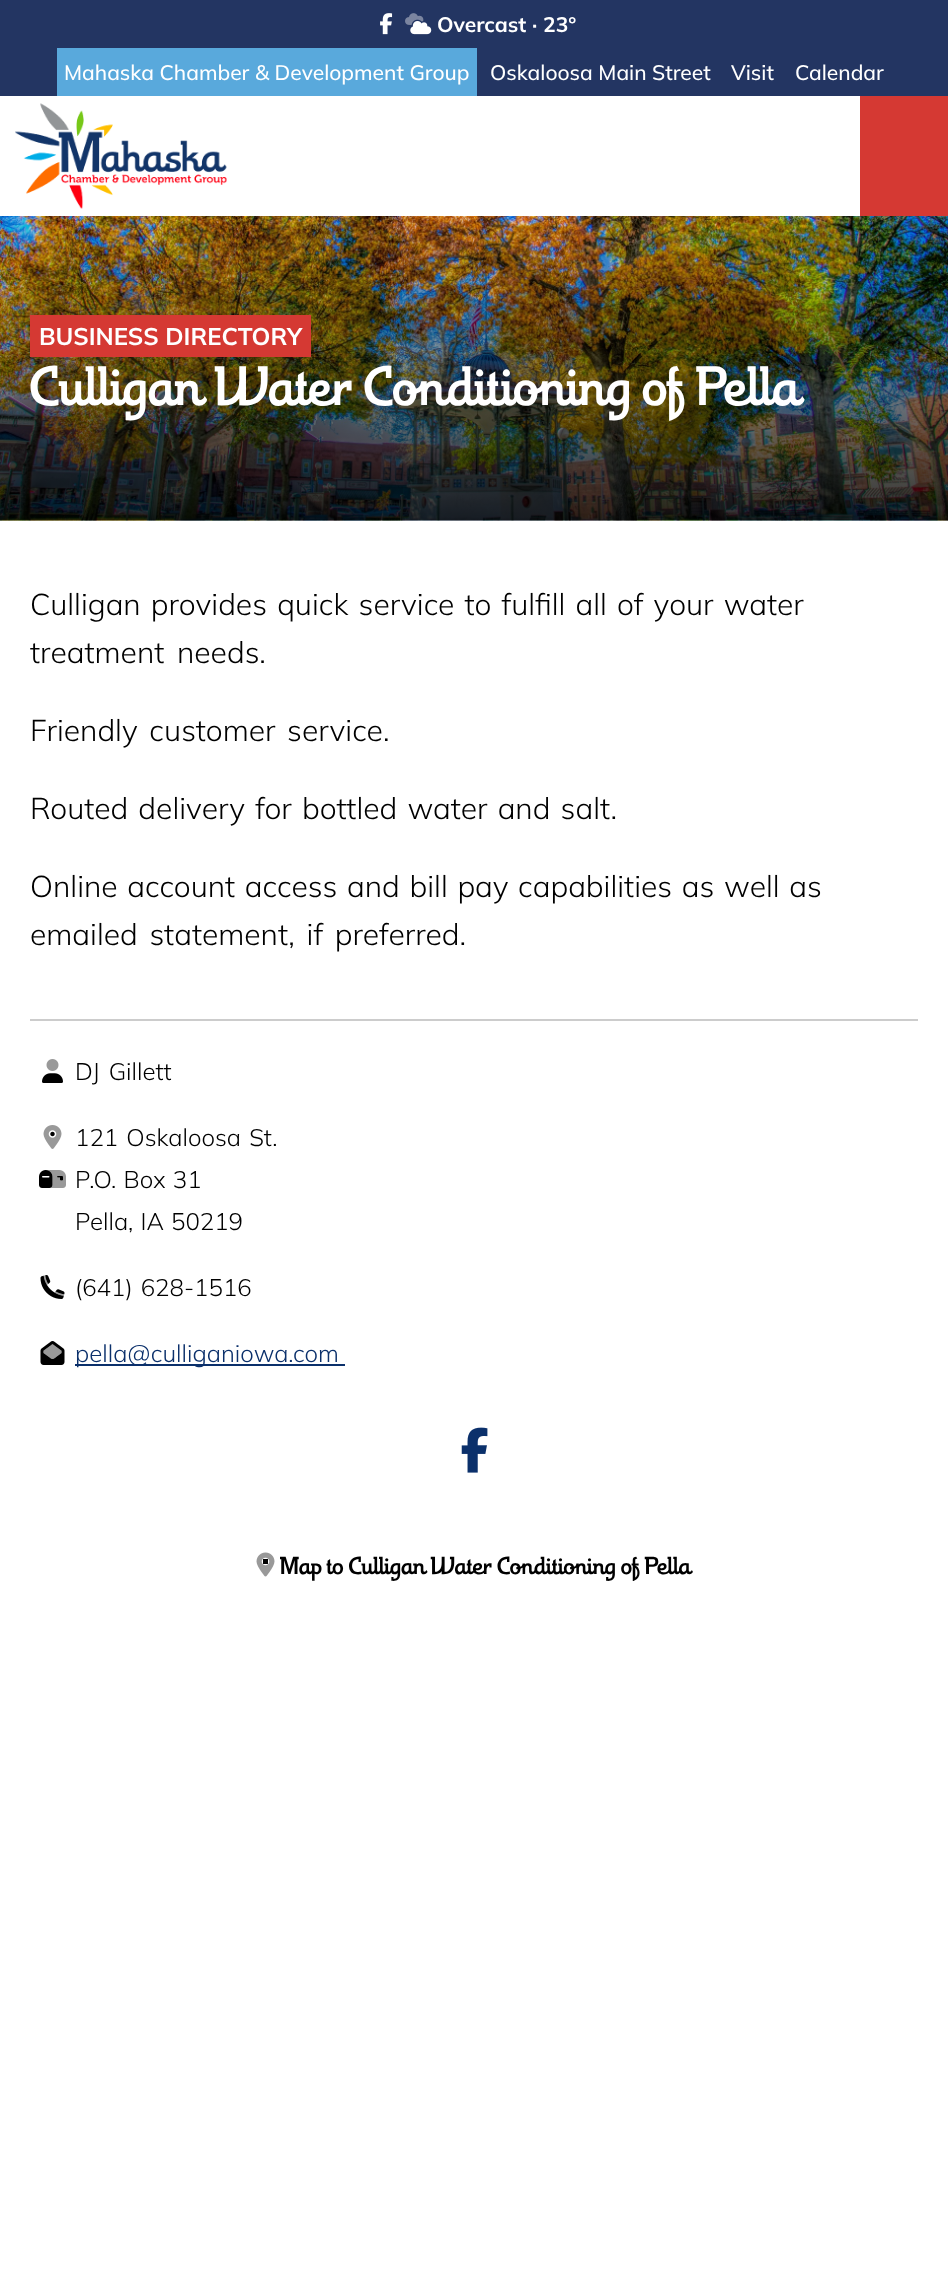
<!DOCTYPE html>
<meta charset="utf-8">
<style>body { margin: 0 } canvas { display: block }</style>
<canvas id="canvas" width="948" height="2279"></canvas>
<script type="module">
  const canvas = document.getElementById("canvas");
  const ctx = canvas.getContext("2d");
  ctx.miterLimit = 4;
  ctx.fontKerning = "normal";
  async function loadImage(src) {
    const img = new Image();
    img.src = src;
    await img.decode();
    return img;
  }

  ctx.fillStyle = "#ffffff";
  ctx.fillRect(0, 0, 948, 2279);
  ctx.fillStyle = "#233562";
  ctx.fillRect(0, 0, 948, 96);
  ctx.drawImage(await loadImage("img1.png"), 380, 13, 13, 22);
  ctx.drawImage(await loadImage("img3.png"), 410, 21, 22, 14);
  ctx.drawImage(await loadImage("img2.png"), 405, 13, 19, 12);
  ctx.font = "bold 21px Mulish";
  ctx.fillStyle = "#ffffff";
  ctx.fillText("Overcast · 23°", 437, 32);
  ctx.fillStyle = "#59a9dc";
  ctx.fillRect(57, 48, 420, 48);
  ctx.font = "500 21px Mulish";
  ctx.fillStyle = "#ffffff";
  ctx.fillText("Mahaska Chamber & Development Group", 64, 80);
  ctx.fillText("Oskaloosa Main Street", 490, 80);
  ctx.fillText("Visit", 731, 80);
  ctx.fillText("Calendar", 795, 80);
  ctx.drawImage(await loadImage("img4.png"), 15, 103, 212, 106);
  ctx.fillStyle = "#d53933";
  ctx.fillRect(860, 96, 88, 120);
  ctx.drawImage(await loadImage("img5.png"), 0, 216, 948, 305);
  ctx.fillRect(30, 315, 281, 42);
  ctx.font = "bold 24px Mulish";
  ctx.fillStyle = "#ffffff";
  ctx.fillText("BUSINESS DIRECTORY", 39, 345);
  ctx.font = "54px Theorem";
  ctx.fillText("Culligan Water Conditioning of Pella", 30, 405);
  ctx.fillStyle = "#cccccc";
  ctx.fillRect(30, 1019, 888, 2);
  ctx.wordSpacing = "2.5px";
  ctx.font = "300 30px Mulish";
  ctx.fillStyle = "#000000";
  ctx.fillText("Culligan provides quick service to fulfill all of your water", 30, 615);
  ctx.wordSpacing = "5px";
  ctx.fillText("treatment needs.", 30, 663);
  ctx.wordSpacing = "4px";
  ctx.fillText("Friendly customer service.", 30, 741);
  ctx.wordSpacing = "2.5px";
  ctx.fillText("Routed delivery for bottled water and salt.", 30, 819);
  ctx.wordSpacing = "2px";
  ctx.fillText("Online account access and bill pay capabilities as well as", 30, 897);
  ctx.wordSpacing = "4px";
  ctx.fillText("emailed statement, if preferred.", 30, 945);
  ctx.drawImage(await loadImage("img6.png"), 46, 1059, 13, 12);
  ctx.drawImage(await loadImage("img7.png"), 42, 1073, 21, 10);
  ctx.wordSpacing = "3px";
  ctx.font = "300 24px Mulish";
  ctx.fillText("DJ Gillett", 75, 1080);
  ctx.drawImage(await loadImage("img9.png"), 50, 1131, 5, 6);
  ctx.drawImage(await loadImage("img8.png"), 43, 1125, 19, 24);
  ctx.drawImage(await loadImage("img10.png"), 39, 1170, 24, 18);
  ctx.drawImage(await loadImage("img11.png"), 47, 1170, 19, 18);
  ctx.wordSpacing = "2px";
  ctx.fillText("121 Oskaloosa St.", 75, 1146);
  ctx.wordSpacing = "1px";
  ctx.fillText("P.O. Box 31", 75, 1188);
  ctx.fillText("Pella, IA 50219", 75, 1230);
  ctx.drawImage(await loadImage("img12.png"), 40, 1275, 25, 24);
  ctx.drawImage(await loadImage("img13.png"), 43, 1275, 22, 21);
  ctx.wordSpacing = "2px";
  ctx.fillText("(641) 628-1516", 75, 1296);
  ctx.drawImage(await loadImage("img14.png"), 40, 1341, 25, 24);
  ctx.drawImage(await loadImage("img15.png"), 43, 1344, 19, 15);
  ctx.fillStyle = "#0b306b";
  ctx.fillRect(75, 1364, 270, 2);
  ctx.wordSpacing = "0px";
  ctx.fillText("pella@culliganiowa.com", 75, 1362);
  ctx.drawImage(await loadImage("img16.png"), 461, 1427, 27, 46);
  ctx.fillStyle = "#000000";
  ctx.fillRect(263, 1559, 5, 5);
  ctx.drawImage(await loadImage("img17.png"), 256, 1552, 19, 25);
  ctx.font = "24px Theorem";
  ctx.fillText("Map to Culligan Water Conditioning of Pella", 280, 1574);
</script>
